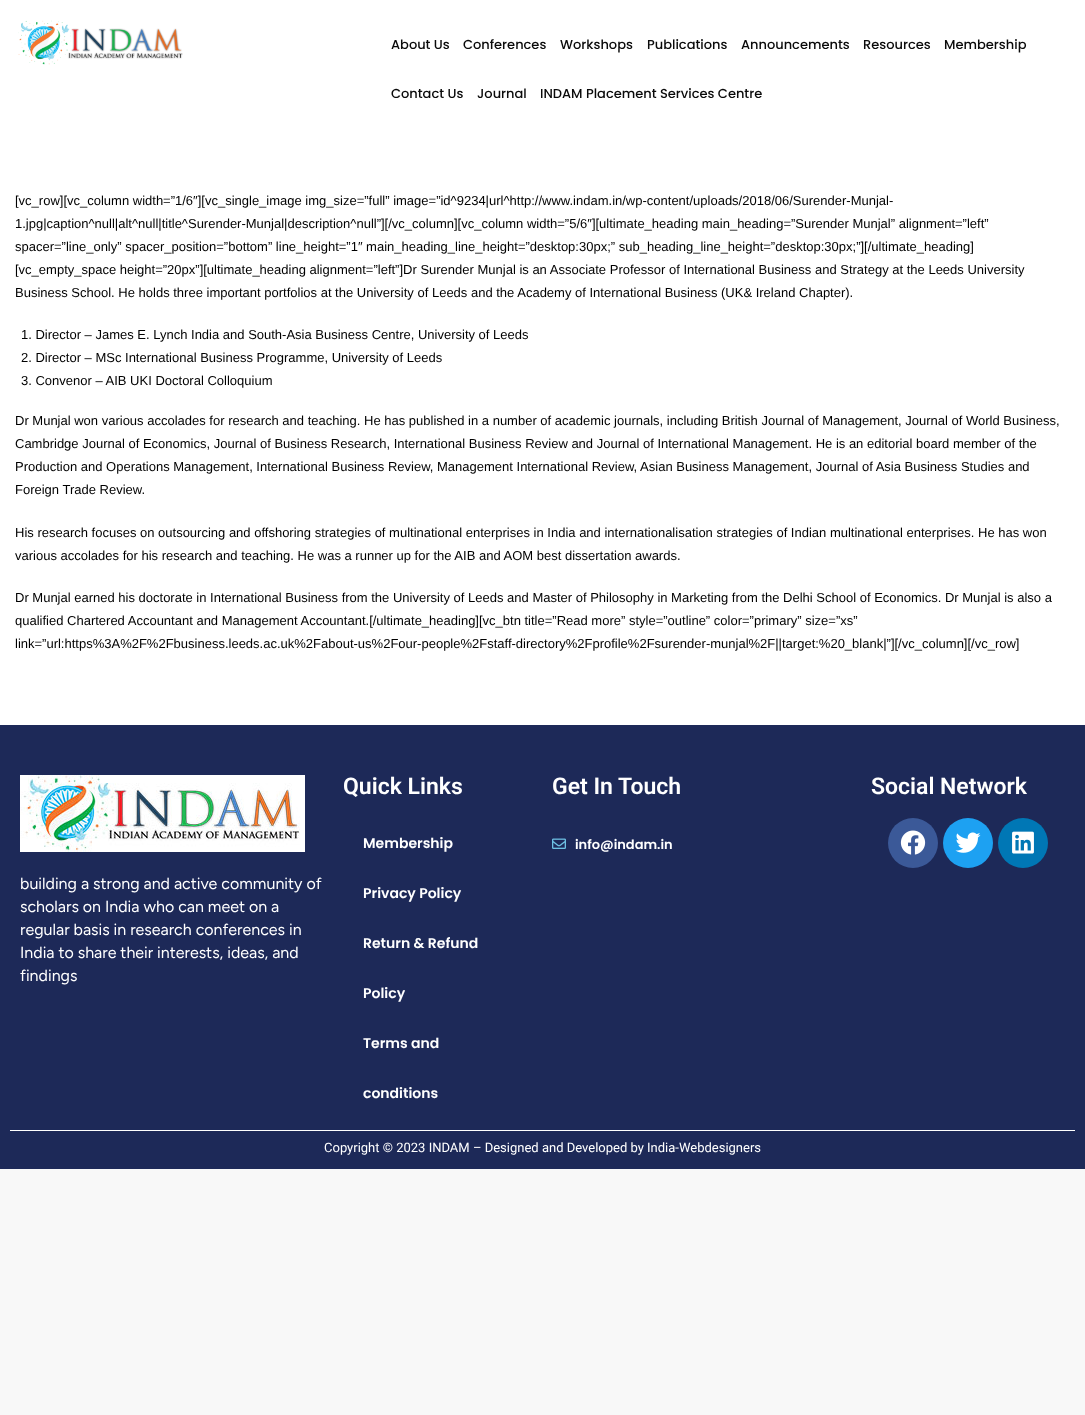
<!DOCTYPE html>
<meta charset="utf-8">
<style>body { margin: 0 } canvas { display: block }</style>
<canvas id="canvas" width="1085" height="1415"></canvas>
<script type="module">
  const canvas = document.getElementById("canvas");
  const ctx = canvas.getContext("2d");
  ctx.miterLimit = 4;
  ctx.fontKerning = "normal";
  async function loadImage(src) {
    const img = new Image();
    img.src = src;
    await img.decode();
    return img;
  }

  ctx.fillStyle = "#f8f8f8";
  ctx.fillRect(0, 0, 1085, 1415);
  ctx.fillStyle = "#ffffff";
  ctx.fillRect(0, 0, 1085, 725);
  ctx.drawImage(await loadImage("img1.png"), 18, 20, 165, 45);
  ctx.font = "500 13px Poppins";
  ctx.fillStyle = "#0a0a0a";
  ctx.fillText("About Us", 391, 49);
  ctx.fillText("Conferences", 463, 49);
  ctx.fillText("Workshops", 560, 49);
  ctx.fillText("Publications", 647, 49);
  ctx.fillText("Announcements", 741, 49);
  ctx.fillText("Resources", 863, 49);
  ctx.fillText("Membership", 944, 49);
  ctx.fillText("Contact Us", 391, 98);
  ctx.fillText("Journal", 477, 98);
  ctx.fillText("INDAM Placement Services Centre", 540, 98);
  ctx.font = "13px Liberation Sans";
  ctx.fillStyle = "#000000";
  ctx.fillText("[vc_row][vc_column width=”1/6″][vc_single_image img_size=”full” image=”id^9234|url^http://www.indam.in/wp-content/uploads/2018/06/Surender-Munjal-", 15, 205);
  ctx.fillText("1.jpg|caption^null|alt^null|title^Surender-Munjal|description^null”][/vc_column][vc_column width=”5/6″][ultimate_heading main_heading=”Surender Munjal” alignment=”left”", 15, 228);
  ctx.fillText("spacer=”line_only” spacer_position=”bottom” line_height=”1″ main_heading_line_height=”desktop:30px;” sub_heading_line_height=”desktop:30px;”][/ultimate_heading]", 15, 251);
  ctx.fillText("[vc_empty_space height=”20px”][ultimate_heading alignment=”left”]Dr Surender Munjal is an Associate Professor of International Business and Strategy at the Leeds University", 15, 274);
  ctx.fillText("Business School. He holds three important portfolios at the University of Leeds and the Academy of International Business (UK& Ireland Chapter).", 15, 297);
  ctx.fillText("1. Director – James E. Lynch India and South-Asia Business Centre, University of Leeds", 21, 339);
  ctx.fillText("2. Director – MSc International Business Programme, University of Leeds", 21, 362);
  ctx.fillText("3. Convenor – AIB UKI Doctoral Colloquium", 21, 385);
  ctx.fillText("Dr Munjal won various accolades for research and teaching. He has published in a number of academic journals, including British Journal of Management, Journal of World Business,", 15, 425);
  ctx.fillText("Cambridge Journal of Economics, Journal of Business Research, International Business Review and Journal of International Management. He is an editorial board member of the", 15, 448);
  ctx.fillText("Production and Operations Management, International Business Review, Management International Review, Asian Business Management, Journal of Asia Business Studies and", 15, 471);
  ctx.fillText("Foreign Trade Review.", 15, 494);
  ctx.fillText("His research focuses on outsourcing and offshoring strategies of multinational enterprises in India and internationalisation strategies of Indian multinational enterprises. He has won", 15, 537);
  ctx.fillText("various accolades for his research and teaching. He was a runner up for the AIB and AOM best dissertation awards.", 15, 560);
  ctx.fillText("Dr Munjal earned his doctorate in International Business from the University of Leeds and Master of Philosophy in Marketing from the Delhi School of Economics. Dr Munjal is also a", 15, 602);
  ctx.fillText("qualified Chartered Accountant and Management Accountant.[/ultimate_heading][vc_btn title=”Read more” style=”outline” color=”primary” size=”xs”", 15, 625);
  ctx.fillText("link=”url:https%3A%2F%2Fbusiness.leeds.ac.uk%2Fabout-us%2Four-people%2Fstaff-directory%2Fprofile%2Fsurender-munjal%2F||target:%20_blank|”][/vc_column][/vc_row]", 15, 648);
  ctx.fillStyle = "#1d2958";
  ctx.fillRect(0, 725, 1085, 444);
  ctx.font = "600 23px Roboto";
  ctx.fillStyle = "#ffffff";
  ctx.fillText("Quick Links", 343, 794);
  ctx.font = "600 14px Poppins";
  ctx.fillText("Membership", 363, 848);
  ctx.fillText("Privacy Policy", 363, 898);
  ctx.fillText("Return & Refund", 363, 948);
  ctx.fillText("Policy", 363, 998);
  ctx.fillText("Terms and", 363, 1048);
  ctx.fillText("conditions", 363, 1098);
  ctx.font = "600 23px Roboto";
  ctx.fillText("Get In Touch", 552, 794);
  ctx.drawImage(await loadImage("img2.png"), 552, 838, 14, 11);
  ctx.font = "600 13px Poppins";
  ctx.fillText("info@indam.in", 575, 849);
  ctx.font = "600 23px Roboto";
  ctx.fillText("Social Network", 871, 794);
  ctx.fillStyle = "#3b5998";
  ctx.beginPath();
  ctx.arc(913, 843, 25, 0, Math.PI * 2);
  ctx.fill();
  ctx.drawImage(await loadImage("img3.png"), 900, 830, 26, 25);
  ctx.fillStyle = "#1da1f2";
  ctx.beginPath();
  ctx.arc(968, 843, 25, 0, Math.PI * 2);
  ctx.fill();
  ctx.drawImage(await loadImage("img4.png"), 955, 832, 26, 21);
  ctx.fillStyle = "#0077b5";
  ctx.beginPath();
  ctx.arc(1023, 843, 25, 0, Math.PI * 2);
  ctx.fill();
  ctx.drawImage(await loadImage("img5.png"), 1012, 831, 22, 23);
  ctx.drawImage(await loadImage("img6.png"), 20, 775, 285, 77);
  ctx.font = "16px Figtree";
  ctx.fillStyle = "#ffffff";
  ctx.fillText("building a strong and active community of", 20, 889);
  ctx.fillText("scholars on India who can meet on a", 20, 912);
  ctx.fillText("regular basis in research conferences in", 20, 935);
  ctx.fillText("India to share their interests, ideas, and", 20, 958);
  ctx.fillText("findings", 20, 981);
  ctx.fillRect(10, 1130, 1065, 1);
  ctx.font = "13px Roboto";
  ctx.fillText("Copyright © 2023 INDAM – Designed and Developed by India-Webdesigners", 324, 1152);
</script>
